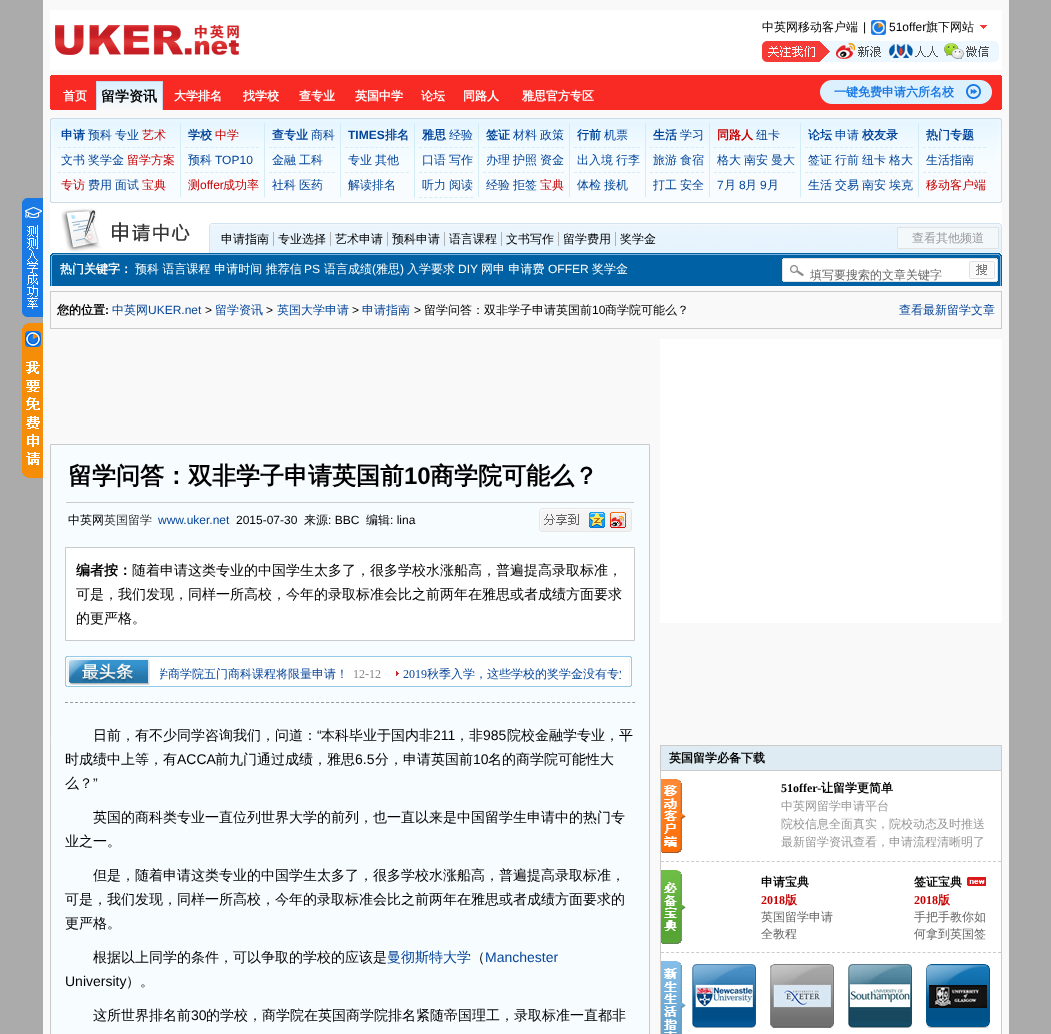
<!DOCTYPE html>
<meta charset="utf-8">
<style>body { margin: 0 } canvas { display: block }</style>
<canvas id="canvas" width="1051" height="1034"></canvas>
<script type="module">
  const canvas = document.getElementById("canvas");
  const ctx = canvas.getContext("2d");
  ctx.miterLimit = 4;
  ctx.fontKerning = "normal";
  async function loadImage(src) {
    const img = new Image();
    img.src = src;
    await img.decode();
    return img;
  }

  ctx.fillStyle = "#ababab";
  ctx.fillRect(0, 0, 1051, 1034);
  ctx.fillStyle = "#f9f9f9";
  ctx.fillRect(43, 0, 966, 1034);
  ctx.drawImage(await loadImage("img1.png"), 22, 198, 21, 119);
  ctx.fillStyle = "#ffffff";
  ctx.fillRect(50, 10, 952, 60);
  ctx.drawImage(await loadImage("img2.png"), 55, 25, 184, 30);
  ctx.font = "500 12px WenQuanYi Zen Hei";
  ctx.fillStyle = "#000000";
  ctx.fillText("中英网移动客户端", 762, 31);
  ctx.font = "12px Liberation Sans";
  ctx.fillText("|", 863, 31);
  ctx.drawImage(await loadImage("img3.png"), 871, 20, 15, 15);
  ctx.fillText("51offer", 889, 31);
  ctx.font = "500 12px WenQuanYi Zen Hei";
  ctx.fillText("旗下网站", 926, 31);
  ctx.drawImage(await loadImage("img4.png"), 980, 25, 7, 4);
  ctx.drawImage(await loadImage("img5.png"), 762, 41, 237, 21);
  ctx.fillStyle = "#f92924";
  ctx.fillRect(50, 76, 1, 33);
  ctx.fillRect(51, 75, 950, 35);
  ctx.font = "bold 12px WenQuanYi Zen Hei";
  ctx.fillStyle = "#ffffff";
  ctx.fillText("首页", 63, 100);
  ctx.drawImage(await loadImage("img6.png"), 97, 82, 65, 28);
  ctx.fillStyle = "#cad9ea";
  ctx.fillRect(96, 81, 67, 1);
  ctx.fillRect(162, 81, 1, 29);
  ctx.fillRect(96, 81, 1, 29);
  ctx.font = "bold 14px WenQuanYi Zen Hei";
  ctx.fillStyle = "#000000";
  ctx.fillText("留学资讯", 101, 101);
  ctx.font = "bold 12px WenQuanYi Zen Hei";
  ctx.fillStyle = "#ffffff";
  ctx.fillText("大学排名", 174, 100);
  ctx.fillText("找学校", 243, 100);
  ctx.fillText("查专业", 299, 100);
  ctx.fillText("英国中学", 355, 100);
  ctx.fillText("论坛", 421, 100);
  ctx.fillText("同路人", 463, 100);
  ctx.fillText("雅思官方专区", 522, 100);
  ctx.drawImage(await loadImage("img7.png"), 820, 80, 172, 24);
  ctx.fillStyle = "#197ae5";
  ctx.fillText("一键免费申请六所名校", 834, 96);
  ctx.fillStyle = "#f92924";
  ctx.fillRect(1001, 76, 1, 33);
  ctx.fillStyle = "#ffffff";
  ctx.fillRect(50, 118, 952, 135);
  ctx.drawImage(await loadImage("img8.png"), 50, 118, 952, 85);
  ctx.beginPath();
  ctx.moveTo(58, 147.5);
  ctx.lineTo(175, 147.5);
  ctx.strokeStyle = "#d4ecf6";
  ctx.setLineDash([3, 1.96]);
  ctx.stroke();
  ctx.fillStyle = "#004499";
  ctx.fillText("申请", 61, 139);
  ctx.font = "500 12px WenQuanYi Zen Hei";
  ctx.fillText("预科", 88, 139);
  ctx.fillText("专业", 115, 139);
  ctx.fillStyle = "#c60000";
  ctx.fillText("艺术", 142, 139);
  ctx.beginPath();
  ctx.moveTo(58, 172.5);
  ctx.lineTo(175, 172.5);
  ctx.stroke();
  ctx.fillStyle = "#004499";
  ctx.fillText("文书", 61, 164);
  ctx.fillText("奖学金", 88, 164);
  ctx.fillStyle = "#c60000";
  ctx.fillText("留学方案", 127, 164);
  ctx.fillText("专访", 61, 189);
  ctx.fillStyle = "#004499";
  ctx.fillText("费用", 88, 189);
  ctx.fillText("面试", 115, 189);
  ctx.fillStyle = "#c60000";
  ctx.fillText("宝典", 142, 189);
  ctx.fillStyle = "#d4ecf6";
  ctx.fillRect(180, 123, 1, 74);
  ctx.beginPath();
  ctx.moveTo(185, 147.5);
  ctx.lineTo(259, 147.5);
  ctx.setLineDash([3, 2.07]);
  ctx.stroke();
  ctx.font = "bold 12px WenQuanYi Zen Hei";
  ctx.fillStyle = "#004499";
  ctx.fillText("学校", 188, 139);
  ctx.font = "500 12px WenQuanYi Zen Hei";
  ctx.fillStyle = "#c60000";
  ctx.fillText("中学", 215, 139);
  ctx.beginPath();
  ctx.moveTo(185, 172.5);
  ctx.lineTo(259, 172.5);
  ctx.stroke();
  ctx.fillStyle = "#004499";
  ctx.fillText("预科", 188, 164);
  ctx.font = "12px Liberation Sans";
  ctx.fillText("TOP10", 215, 164);
  ctx.font = "500 12px WenQuanYi Zen Hei";
  ctx.fillStyle = "#c60000";
  ctx.fillText("测", 188, 189);
  ctx.font = "12px Liberation Sans";
  ctx.fillText("offer", 200, 189);
  ctx.font = "500 12px WenQuanYi Zen Hei";
  ctx.fillText("成功率", 223, 189);
  ctx.fillStyle = "#d4ecf6";
  ctx.fillRect(264, 123, 1, 74);
  ctx.beginPath();
  ctx.moveTo(269, 147.5);
  ctx.lineTo(335, 147.5);
  ctx.setLineDash([3, 1.85]);
  ctx.stroke();
  ctx.font = "bold 12px WenQuanYi Zen Hei";
  ctx.fillStyle = "#004499";
  ctx.fillText("查专业", 272, 139);
  ctx.font = "500 12px WenQuanYi Zen Hei";
  ctx.fillText("商科", 311, 139);
  ctx.beginPath();
  ctx.moveTo(269, 172.5);
  ctx.lineTo(335, 172.5);
  ctx.stroke();
  ctx.fillText("金融", 272, 164);
  ctx.fillText("工科", 299, 164);
  ctx.fillText("社科", 272, 189);
  ctx.fillText("医药", 299, 189);
  ctx.fillStyle = "#d4ecf6";
  ctx.fillRect(340, 123, 1, 74);
  ctx.beginPath();
  ctx.moveTo(345, 147.5);
  ctx.lineTo(409, 147.5);
  ctx.setLineDash([3, 2.08]);
  ctx.stroke();
  ctx.font = "bold 12px Liberation Sans";
  ctx.fillStyle = "#004499";
  ctx.fillText("TIMES", 348, 139);
  ctx.font = "bold 12px WenQuanYi Zen Hei";
  ctx.fillText("排名", 385, 139);
  ctx.beginPath();
  ctx.moveTo(345, 172.5);
  ctx.lineTo(409, 172.5);
  ctx.stroke();
  ctx.font = "500 12px WenQuanYi Zen Hei";
  ctx.fillText("专业", 348, 164);
  ctx.fillText("其他", 375, 164);
  ctx.fillText("解读排名", 348, 189);
  ctx.fillStyle = "#d4ecf6";
  ctx.fillRect(414, 123, 1, 75);
  ctx.beginPath();
  ctx.moveTo(419, 147.5);
  ctx.lineTo(473, 147.5);
  ctx.moveTo(419, 172.5);
  ctx.lineTo(473, 172.5);
  ctx.moveTo(419, 197.5);
  ctx.lineTo(473, 197.5);
  ctx.setLineDash([3, 2.1]);
  ctx.stroke();
  ctx.font = "bold 12px WenQuanYi Zen Hei";
  ctx.fillStyle = "#004499";
  ctx.fillText("雅思", 422, 139);
  ctx.font = "500 12px WenQuanYi Zen Hei";
  ctx.fillText("经验", 449, 139);
  ctx.fillText("口语", 422, 164);
  ctx.fillText("写作", 449, 164);
  ctx.fillText("听力", 422, 189);
  ctx.fillText("阅读", 449, 189);
  ctx.fillStyle = "#d4ecf6";
  ctx.fillRect(478, 123, 1, 74);
  ctx.beginPath();
  ctx.moveTo(483, 147.5);
  ctx.lineTo(564, 147.5);
  ctx.setLineDash([3, 1.88]);
  ctx.stroke();
  ctx.font = "bold 12px WenQuanYi Zen Hei";
  ctx.fillStyle = "#004499";
  ctx.fillText("签证", 486, 139);
  ctx.font = "500 12px WenQuanYi Zen Hei";
  ctx.fillText("材料", 513, 139);
  ctx.fillText("政策", 540, 139);
  ctx.beginPath();
  ctx.moveTo(483, 172.5);
  ctx.lineTo(564, 172.5);
  ctx.stroke();
  ctx.fillText("办理", 486, 164);
  ctx.fillText("护照", 513, 164);
  ctx.fillText("资金", 540, 164);
  ctx.fillText("经验", 486, 189);
  ctx.fillText("拒签", 513, 189);
  ctx.fillStyle = "#c60000";
  ctx.fillText("宝典", 540, 189);
  ctx.fillStyle = "#d4ecf6";
  ctx.fillRect(569, 123, 1, 74);
  ctx.beginPath();
  ctx.moveTo(574, 147.5);
  ctx.lineTo(640, 147.5);
  ctx.setLineDash([3, 1.85]);
  ctx.stroke();
  ctx.font = "bold 12px WenQuanYi Zen Hei";
  ctx.fillStyle = "#004499";
  ctx.fillText("行前", 577, 139);
  ctx.font = "500 12px WenQuanYi Zen Hei";
  ctx.fillText("机票", 604, 139);
  ctx.beginPath();
  ctx.moveTo(574, 172.5);
  ctx.lineTo(640, 172.5);
  ctx.stroke();
  ctx.fillText("出入境", 577, 164);
  ctx.fillText("行李", 616, 164);
  ctx.fillText("体检", 577, 189);
  ctx.fillText("接机", 604, 189);
  ctx.fillStyle = "#d4ecf6";
  ctx.fillRect(645, 123, 1, 74);
  ctx.beginPath();
  ctx.moveTo(650, 147.5);
  ctx.lineTo(704, 147.5);
  ctx.moveTo(650, 172.5);
  ctx.lineTo(704, 172.5);
  ctx.setLineDash([3, 2.1]);
  ctx.stroke();
  ctx.font = "bold 12px WenQuanYi Zen Hei";
  ctx.fillStyle = "#004499";
  ctx.fillText("生活", 653, 139);
  ctx.font = "500 12px WenQuanYi Zen Hei";
  ctx.fillText("学习", 680, 139);
  ctx.fillText("旅游", 653, 164);
  ctx.fillText("食宿", 680, 164);
  ctx.fillText("打工", 653, 189);
  ctx.fillText("安全", 680, 189);
  ctx.fillStyle = "#d4ecf6";
  ctx.fillRect(709, 123, 1, 74);
  ctx.beginPath();
  ctx.moveTo(714, 147.5);
  ctx.lineTo(795, 147.5);
  ctx.setLineDash([3, 1.88]);
  ctx.stroke();
  ctx.font = "bold 12px WenQuanYi Zen Hei";
  ctx.fillStyle = "#c60000";
  ctx.fillText("同路人", 717, 139);
  ctx.font = "500 12px WenQuanYi Zen Hei";
  ctx.fillStyle = "#004499";
  ctx.fillText("纽卡", 756, 139);
  ctx.beginPath();
  ctx.moveTo(714, 172.5);
  ctx.lineTo(795, 172.5);
  ctx.stroke();
  ctx.fillText("格大", 717, 164);
  ctx.fillText("南安", 744, 164);
  ctx.fillText("曼大", 771, 164);
  ctx.font = "12px Liberation Sans";
  ctx.fillText("7", 717, 189);
  ctx.font = "500 12px WenQuanYi Zen Hei";
  ctx.fillText("月", 724, 189);
  ctx.font = "12px Liberation Sans";
  ctx.fillText("8", 739, 189);
  ctx.font = "500 12px WenQuanYi Zen Hei";
  ctx.fillText("月", 745, 189);
  ctx.font = "12px Liberation Sans";
  ctx.fillText("9", 760, 189);
  ctx.font = "500 12px WenQuanYi Zen Hei";
  ctx.fillText("月", 767, 189);
  ctx.fillStyle = "#d4ecf6";
  ctx.fillRect(800, 123, 1, 74);
  ctx.beginPath();
  ctx.moveTo(805, 147.5);
  ctx.lineTo(913, 147.5);
  ctx.setLineDash([3, 2]);
  ctx.stroke();
  ctx.font = "bold 12px WenQuanYi Zen Hei";
  ctx.fillStyle = "#004499";
  ctx.fillText("论坛", 808, 139);
  ctx.font = "500 12px WenQuanYi Zen Hei";
  ctx.fillText("申请", 835, 139);
  ctx.font = "bold 12px WenQuanYi Zen Hei";
  ctx.fillText("校友录", 862, 139);
  ctx.beginPath();
  ctx.moveTo(805, 172.5);
  ctx.lineTo(913, 172.5);
  ctx.stroke();
  ctx.font = "500 12px WenQuanYi Zen Hei";
  ctx.fillText("签证", 808, 164);
  ctx.fillText("行前", 835, 164);
  ctx.fillText("纽卡", 862, 164);
  ctx.fillText("格大", 889, 164);
  ctx.fillText("生活", 808, 189);
  ctx.fillText("交易", 835, 189);
  ctx.fillText("南安", 862, 189);
  ctx.fillText("埃克", 889, 189);
  ctx.fillStyle = "#d4ecf6";
  ctx.fillRect(918, 123, 1, 74);
  ctx.beginPath();
  ctx.moveTo(923, 147.5);
  ctx.lineTo(986, 147.5);
  ctx.moveTo(923, 172.5);
  ctx.lineTo(986, 172.5);
  ctx.stroke();
  ctx.font = "bold 12px WenQuanYi Zen Hei";
  ctx.fillStyle = "#004499";
  ctx.fillText("热门专题", 926, 139);
  ctx.font = "500 12px WenQuanYi Zen Hei";
  ctx.fillText("生活指南", 926, 164);
  ctx.fillStyle = "#c60000";
  ctx.fillText("移动客户端", 926, 189);
  ctx.drawImage(await loadImage("img9.png"), 209, 223, 793, 30);
  ctx.drawImage(await loadImage("img10.png"), 61, 208, 129, 44);
  ctx.fillStyle = "#000000";
  ctx.fillText("申请指南", 221, 243);
  ctx.fillStyle = "#b1b1b1";
  ctx.fillRect(273, 232, 1, 14);
  ctx.fillStyle = "#000000";
  ctx.fillText("专业选择", 278, 243);
  ctx.fillStyle = "#b1b1b1";
  ctx.fillRect(330, 232, 1, 14);
  ctx.fillStyle = "#000000";
  ctx.fillText("艺术申请", 335, 243);
  ctx.fillStyle = "#b1b1b1";
  ctx.fillRect(387, 232, 1, 14);
  ctx.fillStyle = "#000000";
  ctx.fillText("预科申请", 392, 243);
  ctx.fillStyle = "#b1b1b1";
  ctx.fillRect(444, 232, 1, 14);
  ctx.fillStyle = "#000000";
  ctx.fillText("语言课程", 449, 243);
  ctx.fillStyle = "#b1b1b1";
  ctx.fillRect(501, 232, 1, 14);
  ctx.fillStyle = "#000000";
  ctx.fillText("文书写作", 506, 243);
  ctx.fillStyle = "#b1b1b1";
  ctx.fillRect(558, 232, 1, 14);
  ctx.fillStyle = "#000000";
  ctx.fillText("留学费用", 563, 243);
  ctx.fillStyle = "#b1b1b1";
  ctx.fillRect(615, 232, 1, 14);
  ctx.fillStyle = "#000000";
  ctx.fillText("奖学金", 620, 243);
  ctx.fillStyle = "#f3f8fb";
  ctx.beginPath();
  ctx.rect(897.5, 227.5, 101, 21);
  ctx.fill();
  ctx.strokeStyle = "#e3e3e3";
  ctx.setLineDash([]);
  ctx.stroke();
  ctx.fillStyle = "#999999";
  ctx.fillText("查看其他频道", 912, 242);
  ctx.drawImage(await loadImage("img11.png"), 50, 253, 952, 33);
  ctx.font = "bold 12px WenQuanYi Zen Hei";
  ctx.fillStyle = "#ffffff";
  ctx.fillText("热门关键字：", 60, 273);
  ctx.font = "500 12px WenQuanYi Zen Hei";
  ctx.fillText("预科 语言课程 申请时间 推荐信", 135, 273);
  ctx.font = "12px Liberation Sans";
  ctx.fillText("PS", 304, 273);
  ctx.font = "500 12px WenQuanYi Zen Hei";
  ctx.fillText("语言成绩", 324, 273);
  ctx.font = "12px Liberation Sans";
  ctx.fillText("(", 372, 273);
  ctx.font = "500 12px WenQuanYi Zen Hei";
  ctx.fillText("雅思", 376, 273);
  ctx.font = "12px Liberation Sans";
  ctx.fillText(")", 400, 273);
  ctx.font = "500 12px WenQuanYi Zen Hei";
  ctx.fillText("入学要求", 407, 273);
  ctx.font = "12px Liberation Sans";
  ctx.fillText("DIY", 458, 273);
  ctx.font = "500 12px WenQuanYi Zen Hei";
  ctx.fillText("网申 申请费", 481, 273);
  ctx.font = "12px Liberation Sans";
  ctx.fillText("OFFER", 548, 273);
  ctx.font = "500 12px WenQuanYi Zen Hei";
  ctx.fillText("奖学金", 592, 273);
  ctx.drawImage(await loadImage("img12.png"), 782, 258, 216, 24);
  ctx.save();
  ctx.beginPath();
  ctx.rect(810, 267, 150, 17);
  ctx.clip();
  ctx.fillStyle = "#666666";
  ctx.fillText("填写要搜索的文章关键字", 810, 279);
  ctx.restore();
  ctx.drawImage(await loadImage("img13.png"), 969, 261, 26, 18);
  ctx.strokeStyle = "#cbcbcb";
  ctx.strokeRect(50.5, 291.5, 951, 37);
  ctx.font = "bold 12px WenQuanYi Zen Hei";
  ctx.fillStyle = "#000000";
  ctx.fillText("您的位置", 57, 314);
  ctx.font = "bold 12px Liberation Sans";
  ctx.fillText(":", 105, 314);
  ctx.font = "500 12px WenQuanYi Zen Hei";
  ctx.fillStyle = "#064599";
  ctx.fillText("中英网", 112, 314);
  ctx.font = "12px Liberation Sans";
  ctx.fillText("UKER.net", 148, 314);
  ctx.fillStyle = "#000000";
  ctx.fillText(">", 205, 314);
  ctx.font = "500 12px WenQuanYi Zen Hei";
  ctx.fillStyle = "#064599";
  ctx.fillText("留学资讯", 215, 314);
  ctx.font = "12px Liberation Sans";
  ctx.fillStyle = "#000000";
  ctx.fillText(">", 266, 314);
  ctx.font = "500 12px WenQuanYi Zen Hei";
  ctx.fillStyle = "#064599";
  ctx.fillText("英国大学申请", 277, 314);
  ctx.font = "12px Liberation Sans";
  ctx.fillStyle = "#000000";
  ctx.fillText(">", 352, 314);
  ctx.font = "500 12px WenQuanYi Zen Hei";
  ctx.fillStyle = "#064599";
  ctx.fillText("申请指南", 362, 314);
  ctx.font = "12px Liberation Sans";
  ctx.fillStyle = "#000000";
  ctx.fillText(">", 414, 314);
  ctx.font = "500 12px WenQuanYi Zen Hei";
  ctx.fillText("留学问答：双非学子申请英国前", 424, 314);
  ctx.font = "12px Liberation Sans";
  ctx.fillText("10", 592, 314);
  ctx.font = "500 12px WenQuanYi Zen Hei";
  ctx.fillText("商学院可能么？", 605, 314);
  ctx.fillStyle = "#064599";
  ctx.fillText("查看最新留学文章", 899, 314);
  ctx.drawImage(await loadImage("img14.png"), 22, 323, 21, 155);
  ctx.fillStyle = "#f7fcff";
  ctx.beginPath();
  ctx.rect(50.5, 444.5, 599, 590);
  ctx.fill();
  ctx.stroke();
  ctx.fillStyle = "#cbcbcb";
  ctx.fillRect(66, 502, 568, 1);
  ctx.font = "bold 24px WenQuanYi Zen Hei";
  ctx.fillStyle = "#000000";
  ctx.fillText("留学问答：双非学子申请英国前", 68, 484);
  ctx.font = "bold 24px Liberation Sans";
  ctx.fillText("10", 404, 484);
  ctx.font = "bold 24px WenQuanYi Zen Hei";
  ctx.fillText("商学院可能么？", 430, 484);
  ctx.font = "500 12px WenQuanYi Zen Hei";
  ctx.fillText("中英网", 68, 524);
  ctx.fillStyle = "#333333";
  ctx.fillText("英国留学", 104, 524);
  ctx.font = "12px Liberation Sans";
  ctx.fillStyle = "#064599";
  ctx.fillText("www.uker.net", 158, 524);
  ctx.fillStyle = "#000000";
  ctx.fillText("2015-07-30", 236, 524);
  ctx.font = "500 12px WenQuanYi Zen Hei";
  ctx.fillText("来源", 304, 524);
  ctx.font = "12px Liberation Sans";
  ctx.fillText(": BBC", 328, 524);
  ctx.font = "500 12px WenQuanYi Zen Hei";
  ctx.fillText("编辑", 366, 524);
  ctx.font = "12px Liberation Sans";
  ctx.fillText(": lina", 390, 524);
  ctx.drawImage(await loadImage("img15.png"), 539, 508, 93, 24);
  ctx.fillStyle = "#ffffff";
  ctx.beginPath();
  ctx.rect(65.5, 547.5, 569, 93);
  ctx.fill();
  ctx.stroke();
  ctx.font = "bold 14px WenQuanYi Zen Hei";
  ctx.fillStyle = "#000000";
  ctx.fillText("编者按：", 76, 575);
  ctx.font = "500 14px WenQuanYi Zen Hei";
  ctx.fillText("随着申请这类专业的中国学生太多了，很多学校水涨船高，普遍提高录取标准，", 132, 575);
  ctx.fillText("可是，我们发现，同样一所高校，今年的录取标准会比之前两年在雅思或者成绩方面要求", 76, 599);
  ctx.fillText("的更严格。", 76, 623);
  ctx.drawImage(await loadImage("img16.png"), 65, 656, 567, 31);
  ctx.beginPath();
  ctx.moveTo(65, 702.5);
  ctx.lineTo(635, 702.5);
  ctx.strokeStyle = "#999999";
  ctx.setLineDash([3, 2.02]);
  ctx.stroke();
  ctx.fillText("日前，有不少同学咨询我们，问道：", 93, 740);
  ctx.font = "14px Liberation Sans";
  ctx.fillText("“", 317, 740);
  ctx.font = "500 14px WenQuanYi Zen Hei";
  ctx.fillText("本科毕业于国内非", 321, 740);
  ctx.font = "14px Liberation Sans";
  ctx.fillText("211", 433, 740);
  ctx.font = "500 14px WenQuanYi Zen Hei";
  ctx.fillText("，非", 455, 740);
  ctx.font = "14px Liberation Sans";
  ctx.fillText("985", 483, 740);
  ctx.font = "500 14px WenQuanYi Zen Hei";
  ctx.fillText("院校金融学专业，平", 507, 740);
  ctx.fillText("时成绩中上等，有", 65, 764);
  ctx.font = "14px Liberation Sans";
  ctx.fillText("ACCA", 177, 764);
  ctx.font = "500 14px WenQuanYi Zen Hei";
  ctx.fillText("前九门通过成绩，雅思", 215, 764);
  ctx.font = "14px Liberation Sans";
  ctx.fillText("6.5", 355, 764);
  ctx.font = "500 14px WenQuanYi Zen Hei";
  ctx.fillText("分，申请英国前", 375, 764);
  ctx.font = "14px Liberation Sans";
  ctx.fillText("10", 473, 764);
  ctx.font = "500 14px WenQuanYi Zen Hei";
  ctx.fillText("名的商学院可能性大", 488, 764);
  ctx.fillText("么？", 65, 788);
  ctx.font = "14px Liberation Sans";
  ctx.fillText("”", 93, 788);
  ctx.font = "500 14px WenQuanYi Zen Hei";
  ctx.fillText("英国的商科类专业一直位列世界大学的前列，也一直以来是中国留学生申请中的热门专", 93, 822);
  ctx.fillText("业之一。", 65, 846);
  ctx.fillText("但是，随着申请这类专业的中国学生太多了，很多学校水涨船高，普遍提高录取标准，", 93, 880);
  ctx.fillText("可是，我们发现，同样一所高校，今年的录取标准会比之前两年在雅思或者成绩方面要求的", 65, 904);
  ctx.fillText("更严格。", 65, 928);
  ctx.fillText("根据以上同学的条件，可以争取的学校的应该是", 93, 962);
  ctx.fillStyle = "#064599";
  ctx.fillText("曼彻斯特大学", 387, 962);
  ctx.fillStyle = "#000000";
  ctx.fillText("（", 471, 962);
  ctx.font = "14px Liberation Sans";
  ctx.fillStyle = "#064599";
  ctx.fillText("Manchester", 485, 962);
  ctx.fillStyle = "#000000";
  ctx.fillText("University", 65, 986);
  ctx.font = "500 14px WenQuanYi Zen Hei";
  ctx.fillText("）。", 126, 986);
  ctx.fillText("这所世界排名前", 93, 1020);
  ctx.font = "14px Liberation Sans";
  ctx.fillText("30", 191, 1020);
  ctx.font = "500 14px WenQuanYi Zen Hei";
  ctx.fillText("的学校，商学院在英国商学院排名紧随帝国理工，录取标准一直都非", 206, 1020);
  ctx.fillStyle = "#ffffff";
  ctx.fillRect(660, 339, 342, 284);
  ctx.fillRect(661, 771, 340, 263);
  ctx.strokeStyle = "#cbcbcb";
  ctx.setLineDash([]);
  ctx.strokeRect(660.5, 745.5, 341, 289);
  ctx.fillStyle = "#deebf3";
  ctx.fillRect(661, 746, 340, 24);
  ctx.fillStyle = "#cbcbcb";
  ctx.fillRect(661, 770, 340, 1);
  ctx.font = "bold 12px WenQuanYi Zen Hei";
  ctx.fillStyle = "#000000";
  ctx.fillText("英国留学必备下载", 669, 762);
  ctx.drawImage(await loadImage("img17.png"), 661, 779, 25, 74);
  ctx.beginPath();
  ctx.moveTo(661, 861.5);
  ctx.lineTo(1001, 861.5);
  ctx.setLineDash([3, 2.03]);
  ctx.stroke();
  ctx.font = "bold 12px Liberation Serif";
  ctx.fillText("51offer-", 781, 792);
  ctx.font = "bold 12px WenQuanYi Zen Hei";
  ctx.fillText("让留学更简单", 821, 792);
  ctx.font = "500 12px WenQuanYi Zen Hei";
  ctx.fillStyle = "#999999";
  ctx.fillText("中英网留学申请平台", 781, 810);
  ctx.fillText("院校信息全面真实，院校动态及时推送", 781, 828);
  ctx.fillText("最新留学资讯查看，申请流程清晰明了", 781, 846);
  ctx.drawImage(await loadImage("img18.png"), 661, 870, 25, 74);
  ctx.beginPath();
  ctx.moveTo(661, 952.5);
  ctx.lineTo(1001, 952.5);
  ctx.stroke();
  ctx.font = "bold 12px WenQuanYi Zen Hei";
  ctx.fillStyle = "#000000";
  ctx.fillText("申请宝典", 761, 886);
  ctx.font = "bold 12px Liberation Serif";
  ctx.fillStyle = "#c60000";
  ctx.fillText("2018", 761, 904);
  ctx.font = "bold 12px WenQuanYi Zen Hei";
  ctx.fillText("版", 785, 904);
  ctx.font = "500 12px WenQuanYi Zen Hei";
  ctx.fillStyle = "#666666";
  ctx.fillText("英国留学申请", 761, 921);
  ctx.fillText("全教程", 761, 938);
  ctx.font = "bold 12px WenQuanYi Zen Hei";
  ctx.fillStyle = "#000000";
  ctx.fillText("签证宝典", 914, 886);
  ctx.drawImage(await loadImage("img19.png"), 967, 877, 19, 9);
  ctx.font = "bold 12px Liberation Serif";
  ctx.fillStyle = "#c60000";
  ctx.fillText("2018", 914, 904);
  ctx.font = "bold 12px WenQuanYi Zen Hei";
  ctx.fillText("版", 938, 904);
  ctx.font = "500 12px WenQuanYi Zen Hei";
  ctx.fillStyle = "#666666";
  ctx.fillText("手把手教你如", 914, 921);
  ctx.fillText("何拿到英国签", 914, 938);
  ctx.drawImage(await loadImage("img20.png"), 661, 961, 25, 73);
  ctx.drawImage(await loadImage("img21.png"), 692, 964, 64, 64);
  ctx.drawImage(await loadImage("img22.png"), 770, 964, 64, 64);
  ctx.drawImage(await loadImage("img23.png"), 848, 964, 64, 64);
  ctx.drawImage(await loadImage("img24.png"), 926, 964, 64, 64);
</script>
